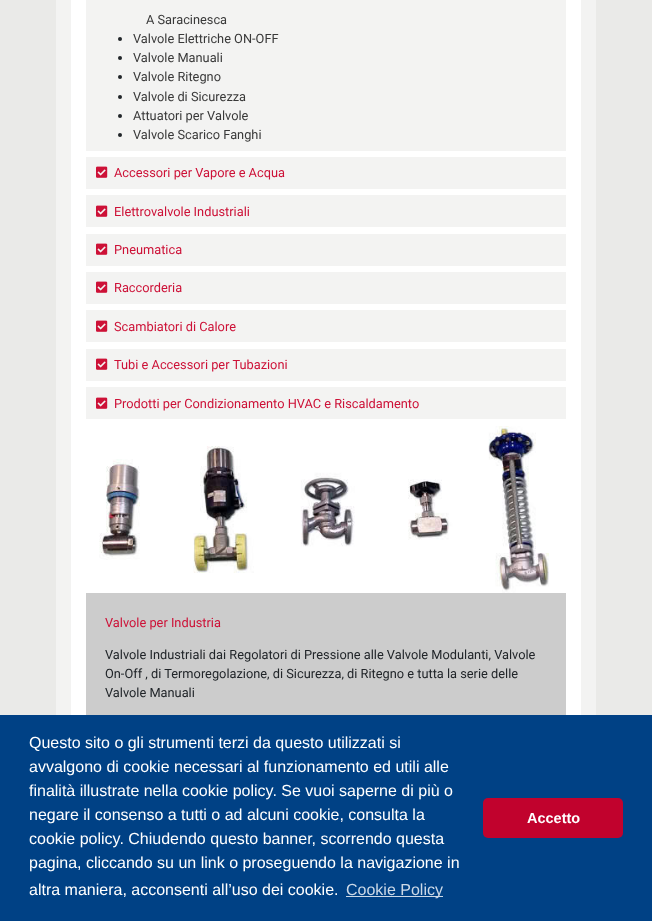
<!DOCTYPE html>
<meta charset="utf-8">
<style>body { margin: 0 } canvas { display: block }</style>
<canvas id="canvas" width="652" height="921"></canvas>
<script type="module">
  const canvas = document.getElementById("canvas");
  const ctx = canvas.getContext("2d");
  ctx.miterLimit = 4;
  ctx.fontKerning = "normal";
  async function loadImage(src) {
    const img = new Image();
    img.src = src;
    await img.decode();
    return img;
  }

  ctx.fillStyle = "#eaeae8";
  ctx.fillRect(0, 0, 652, 921);
  ctx.fillStyle = "#f3f3f2";
  ctx.fillRect(56, 0, 540, 715);
  ctx.fillStyle = "#ffffff";
  ctx.fillRect(71, 0, 510, 715);
  ctx.fillStyle = "#f3f3f2";
  ctx.fillRect(86, 0, 480, 151);
  ctx.font = "12.8px Roboto";
  ctx.fillStyle = "#393939";
  ctx.fillText("A Saracinesca", 146, 24);
  ctx.fillStyle = "#212529";
  ctx.beginPath();
  ctx.arc(120, 39, 2, 0, Math.PI * 2);
  ctx.fill();
  ctx.fillStyle = "#393939";
  ctx.fillText("Valvole Elettriche ON-OFF", 133, 43);
  ctx.fillStyle = "#212529";
  ctx.beginPath();
  ctx.arc(120, 58, 2, 0, Math.PI * 2);
  ctx.fill();
  ctx.fillStyle = "#393939";
  ctx.fillText("Valvole Manuali", 133, 62);
  ctx.fillStyle = "#212529";
  ctx.beginPath();
  ctx.arc(120, 77, 2, 0, Math.PI * 2);
  ctx.fill();
  ctx.fillStyle = "#393939";
  ctx.fillText("Valvole Ritegno", 133, 81);
  ctx.fillStyle = "#212529";
  ctx.beginPath();
  ctx.arc(120, 97, 2, 0, Math.PI * 2);
  ctx.fill();
  ctx.fillStyle = "#393939";
  ctx.fillText("Valvole di Sicurezza", 133, 101);
  ctx.fillStyle = "#212529";
  ctx.beginPath();
  ctx.arc(120, 116, 2, 0, Math.PI * 2);
  ctx.fill();
  ctx.fillStyle = "#393939";
  ctx.fillText("Attuatori per Valvole", 133, 120);
  ctx.fillStyle = "#212529";
  ctx.beginPath();
  ctx.arc(120, 135, 2, 0, Math.PI * 2);
  ctx.fill();
  ctx.fillStyle = "#393939";
  ctx.fillText("Valvole Scarico Fanghi", 133, 139);
  ctx.fillStyle = "#f3f3f2";
  ctx.fillRect(86, 157, 480, 32);
  ctx.drawImage(await loadImage("img1.png"), 96, 166, 12, 12);
  ctx.fillStyle = "#cd1137";
  ctx.fillText("Accessori per Vapore e Acqua", 114, 177);
  ctx.fillStyle = "#f3f3f2";
  ctx.fillRect(86, 195, 480, 32);
  ctx.drawImage(await loadImage("img1.png"), 96, 205, 12, 12);
  ctx.fillStyle = "#cd1137";
  ctx.fillText("Elettrovalvole Industriali", 114, 216);
  ctx.fillStyle = "#f3f3f2";
  ctx.fillRect(86, 234, 480, 32);
  ctx.drawImage(await loadImage("img1.png"), 96, 243, 12, 12);
  ctx.fillStyle = "#cd1137";
  ctx.fillText("Pneumatica", 114, 254);
  ctx.fillStyle = "#f3f3f2";
  ctx.fillRect(86, 272, 480, 32);
  ctx.drawImage(await loadImage("img1.png"), 96, 281, 12, 12);
  ctx.fillStyle = "#cd1137";
  ctx.fillText("Raccorderia", 114, 292);
  ctx.fillStyle = "#f3f3f2";
  ctx.fillRect(86, 310, 480, 32);
  ctx.drawImage(await loadImage("img1.png"), 96, 320, 12, 12);
  ctx.fillStyle = "#cd1137";
  ctx.fillText("Scambiatori di Calore", 114, 331);
  ctx.fillStyle = "#f3f3f2";
  ctx.fillRect(86, 349, 480, 32);
  ctx.drawImage(await loadImage("img1.png"), 96, 358, 12, 12);
  ctx.fillStyle = "#cd1137";
  ctx.fillText("Tubi e Accessori per Tubazioni", 114, 369);
  ctx.fillStyle = "#f3f3f2";
  ctx.fillRect(86, 387, 480, 32);
  ctx.drawImage(await loadImage("img1.png"), 96, 397, 12, 12);
  ctx.fillStyle = "#cd1137";
  ctx.fillText("Prodotti per Condizionamento HVAC e Riscaldamento", 114, 408);
  ctx.drawImage(await loadImage("img2.png"), 99, 426, 450, 167);
  ctx.fillStyle = "#cccccc";
  ctx.fillRect(86, 593, 480, 122);
  ctx.fillStyle = "#cd1137";
  ctx.fillText("Valvole per Industria", 105, 627);
  ctx.fillStyle = "#212529";
  ctx.fillText("Valvole Industriali dai Regolatori di Pressione alle Valvole Modulanti, Valvole", 105, 659);
  ctx.fillText("On-Off , di Termoregolazione, di Sicurezza, di Ritegno e tutta la serie delle", 105, 678);
  ctx.fillText("Valvole Manuali", 105, 697);
  ctx.fillStyle = "#004185";
  ctx.fillRect(0, 715, 652, 206);
  ctx.font = "16px Liberation Sans";
  ctx.fillStyle = "#ffffff";
  ctx.fillText("Questo sito o gli strumenti terzi da questo utilizzati si", 29, 748);
  ctx.fillText("avvalgono di cookie necessari al funzionamento ed utili alle", 29, 772);
  ctx.fillText("finalità illustrate nella cookie policy. Se vuoi saperne di più o", 29, 796);
  ctx.fillText("negare il consenso a tutti o ad alcuni cookie, consulta la", 29, 820);
  ctx.fillText("cookie policy. Chiudendo questo banner, scorrendo questa", 29, 844);
  ctx.fillText("pagina, cliccando su un link o proseguendo la navigazione in", 29, 868);
  ctx.fillText("altra maniera, acconsenti all’uso dei cookie.", 29, 895);
  ctx.fillStyle = "#ccd9e7";
  ctx.fillRect(346, 896, 97, 1);
  ctx.fillText("Cookie Policy", 346, 895);
  ctx.fillStyle = "#c1022d";
  ctx.beginPath();
  ctx.roundRect(483, 798, 140, 40, 5);
  ctx.fill();
  ctx.font = "bold 14.5px Liberation Sans";
  ctx.fillStyle = "#ffffff";
  ctx.fillText("Accetto", 527, 823);
</script>
